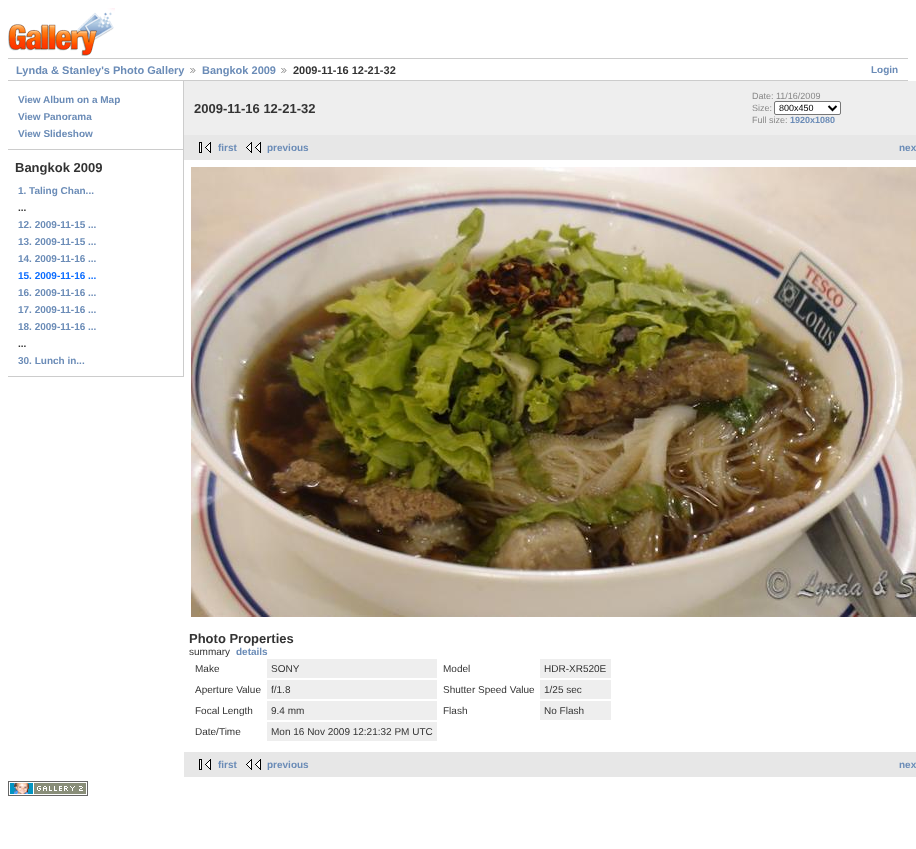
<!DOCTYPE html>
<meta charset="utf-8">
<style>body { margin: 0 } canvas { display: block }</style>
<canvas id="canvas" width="916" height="849"></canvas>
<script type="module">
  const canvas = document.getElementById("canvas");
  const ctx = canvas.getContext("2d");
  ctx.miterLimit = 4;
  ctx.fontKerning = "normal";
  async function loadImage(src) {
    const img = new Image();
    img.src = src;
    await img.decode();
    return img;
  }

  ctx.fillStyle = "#ffffff";
  ctx.fillRect(0, 0, 916, 849);
  ctx.drawImage(await loadImage("img1.png"), 8, 8, 107, 48);
  ctx.fillStyle = "#cccccc";
  ctx.fillRect(8, 58, 900, 1);
  ctx.fillRect(8, 80, 900, 1);
  ctx.font = "bold 11px Liberation Sans";
  ctx.fillStyle = "#6b8cb7";
  ctx.fillText("Lynda & Stanley's Photo Gallery", 16, 74);
  ctx.drawImage(await loadImage("img2.png"), 190, 68, 6, 5);
  ctx.fillText("Bangkok 2009", 202, 74);
  ctx.drawImage(await loadImage("img2.png"), 281, 68, 6, 5);
  ctx.fillStyle = "#333333";
  ctx.fillText("2009-11-16 12-21-32", 293, 74);
  ctx.font = "bold 10px Liberation Sans";
  ctx.fillStyle = "#6b8cb7";
  ctx.fillText("Login", 871, 73);
  ctx.fillStyle = "#cccccc";
  ctx.fillRect(183, 81, 1, 296);
  ctx.fillRect(8, 149, 175, 1);
  ctx.fillStyle = "#6b8cb7";
  ctx.fillText("View Album on a Map", 18, 103);
  ctx.fillText("View Panorama", 18, 120);
  ctx.fillText("View Slideshow", 18, 137);
  ctx.fillStyle = "#cccccc";
  ctx.fillRect(8, 376, 175, 1);
  ctx.font = "bold 13px Liberation Sans";
  ctx.fillStyle = "#333333";
  ctx.fillText("Bangkok 2009", 15, 172);
  ctx.font = "bold 10px Liberation Sans";
  ctx.fillStyle = "#6b8cb7";
  ctx.fillText("1. Taling Chan...", 18, 194);
  ctx.fillStyle = "#333333";
  ctx.fillText("...", 18, 211);
  ctx.fillStyle = "#6b8cb7";
  ctx.fillText("12. 2009-11-15 ...", 18, 228);
  ctx.fillText("13. 2009-11-15 ...", 18, 245);
  ctx.fillText("14. 2009-11-16 ...", 18, 262);
  ctx.fillStyle = "#0b6cff";
  ctx.fillText("15. 2009-11-16 ...", 18, 279);
  ctx.fillStyle = "#6b8cb7";
  ctx.fillText("16. 2009-11-16 ...", 18, 296);
  ctx.fillText("17. 2009-11-16 ...", 18, 313);
  ctx.fillText("18. 2009-11-16 ...", 18, 330);
  ctx.fillStyle = "#333333";
  ctx.fillText("...", 18, 347);
  ctx.fillStyle = "#6b8cb7";
  ctx.fillText("30. Lunch in...", 18, 364);
  ctx.fillStyle = "#eeeeee";
  ctx.fillRect(184, 81, 732, 54);
  ctx.font = "bold 13px Liberation Sans";
  ctx.fillStyle = "#333333";
  ctx.fillText("2009-11-16 12-21-32", 194, 113);
  ctx.font = "9px Liberation Sans";
  ctx.fillStyle = "#888888";
  ctx.fillText("Date: 11/16/2009", 752, 99);
  ctx.fillText("Size:", 752, 111);
  ctx.fillStyle = "#ffffff";
  ctx.beginPath();
  ctx.roundRect(774.5, 101.5, 66, 13, 1.5);
  ctx.fill();
  ctx.strokeStyle = "#767676";
  ctx.stroke();
  ctx.beginPath();
  ctx.moveTo(828.5, 106);
  ctx.lineTo(832.5, 110);
  ctx.lineTo(836.5, 106);
  ctx.strokeStyle = "#000000";
  ctx.lineWidth = 2;
  ctx.stroke();
  ctx.fillStyle = "#000000";
  ctx.fillText("800x450", 779, 111);
  ctx.fillStyle = "#888888";
  ctx.fillText("Full size:", 752, 123);
  ctx.font = "bold 9px Liberation Sans";
  ctx.fillStyle = "#6b8cb7";
  ctx.fillText("1920x1080", 790, 123);
  ctx.fillStyle = "#e7e7e7";
  ctx.fillRect(184, 135, 732, 25);
  ctx.drawImage(await loadImage("img3.png"), 199, 142, 12, 11);
  ctx.font = "bold 10px Liberation Sans";
  ctx.fillStyle = "#6b8cb7";
  ctx.fillText("first", 218, 151);
  ctx.drawImage(await loadImage("img4.png"), 246, 142, 15, 11);
  ctx.fillText("previous", 267, 151);
  ctx.fillText("nex", 899, 151);
  ctx.drawImage(await loadImage("img5.png"), 191, 167, 725, 450);
  ctx.font = "bold 13px Liberation Sans";
  ctx.fillStyle = "#333333";
  ctx.fillText("Photo Properties", 189, 643);
  ctx.font = "10px Liberation Sans";
  ctx.fillText("summary", 189, 655);
  ctx.font = "bold 10px Liberation Sans";
  ctx.fillStyle = "#6b8cb7";
  ctx.fillText("details", 236, 655);
  ctx.font = "10px Liberation Sans";
  ctx.fillStyle = "#333333";
  ctx.fillText("Make", 195, 672);
  ctx.fillStyle = "#eeeeee";
  ctx.fillRect(267, 659, 170, 19);
  ctx.fillStyle = "#333333";
  ctx.fillText("SONY", 271, 672);
  ctx.fillText("Model", 443, 672);
  ctx.fillStyle = "#eeeeee";
  ctx.fillRect(540, 659, 71, 19);
  ctx.fillStyle = "#333333";
  ctx.fillText("HDR-XR520E", 544, 672);
  ctx.fillText("Aperture Value", 195, 693);
  ctx.fillStyle = "#eeeeee";
  ctx.fillRect(267, 680, 170, 19);
  ctx.fillStyle = "#333333";
  ctx.fillText("f/1.8", 271, 693);
  ctx.fillText("Shutter Speed Value", 443, 693);
  ctx.fillStyle = "#eeeeee";
  ctx.fillRect(540, 680, 71, 19);
  ctx.fillStyle = "#333333";
  ctx.fillText("1/25 sec", 544, 693);
  ctx.fillText("Focal Length", 195, 714);
  ctx.fillStyle = "#eeeeee";
  ctx.fillRect(267, 701, 170, 19);
  ctx.fillStyle = "#333333";
  ctx.fillText("9.4 mm", 271, 714);
  ctx.fillText("Flash", 443, 714);
  ctx.fillStyle = "#eeeeee";
  ctx.fillRect(540, 701, 71, 19);
  ctx.fillStyle = "#333333";
  ctx.fillText("No Flash", 544, 714);
  ctx.fillText("Date/Time", 195, 735);
  ctx.fillStyle = "#eeeeee";
  ctx.fillRect(267, 722, 170, 19);
  ctx.fillStyle = "#333333";
  ctx.fillText("Mon 16 Nov 2009 12:21:32 PM UTC", 271, 735);
  ctx.fillStyle = "#e7e7e7";
  ctx.fillRect(184, 752, 732, 25);
  ctx.drawImage(await loadImage("img3.png"), 199, 759, 12, 11);
  ctx.font = "bold 10px Liberation Sans";
  ctx.fillStyle = "#6b8cb7";
  ctx.fillText("first", 218, 768);
  ctx.drawImage(await loadImage("img4.png"), 246, 759, 15, 11);
  ctx.fillText("previous", 267, 768);
  ctx.fillText("nex", 899, 768);
  ctx.drawImage(await loadImage("img6.png"), 8, 781, 80, 15);
</script>
